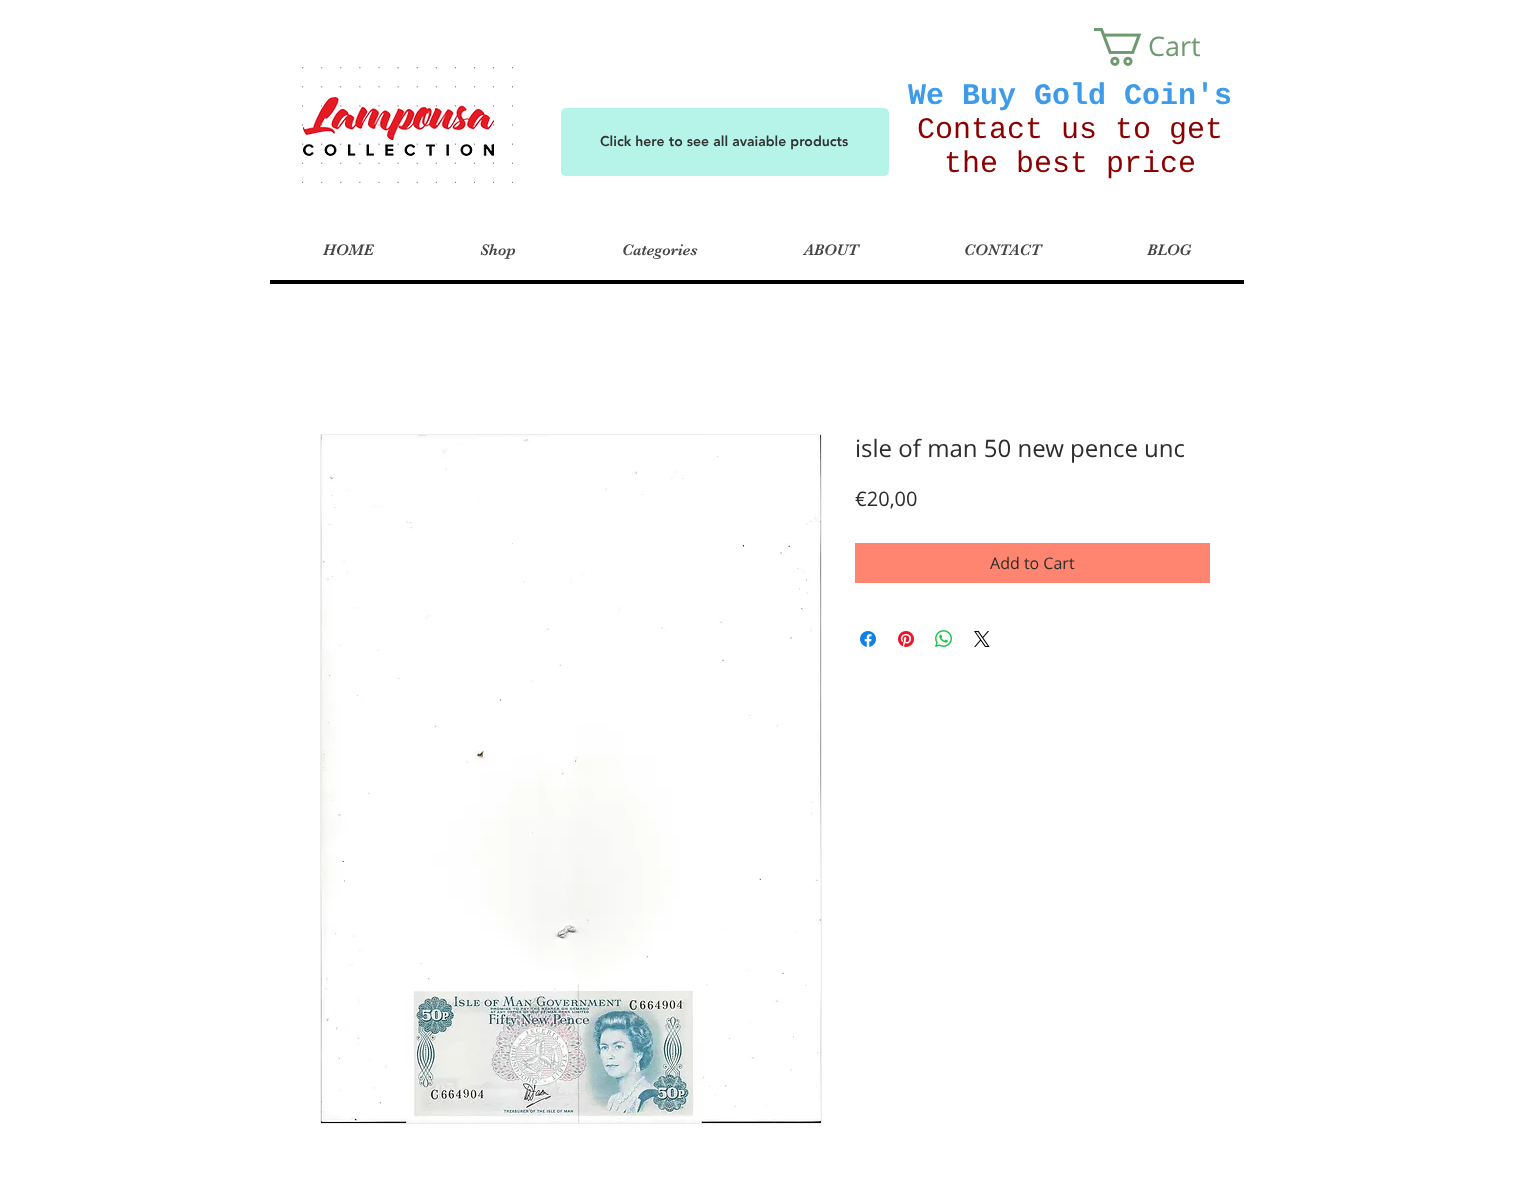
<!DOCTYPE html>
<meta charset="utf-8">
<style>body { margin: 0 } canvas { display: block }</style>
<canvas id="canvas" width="1529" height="1180"></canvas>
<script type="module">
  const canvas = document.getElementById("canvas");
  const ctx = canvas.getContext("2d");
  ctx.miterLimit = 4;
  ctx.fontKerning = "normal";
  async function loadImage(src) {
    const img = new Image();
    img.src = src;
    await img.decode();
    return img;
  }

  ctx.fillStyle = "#ffffff";
  ctx.fillRect(0, 0, 1529, 1180);
  ctx.drawImage(await loadImage("img1.png"), 1094, 28, 48, 38);
  ctx.font = "27px Open Sans";
  ctx.fillStyle = "#6f9971";
  ctx.fillText("Cart", 1148, 56);
  ctx.drawImage(await loadImage("img2.png"), 301, 67, 212, 116);
  ctx.fillStyle = "#b6f3e8";
  ctx.beginPath();
  ctx.roundRect(561, 108, 328, 68, 5);
  ctx.fill();
  ctx.font = "900 14px 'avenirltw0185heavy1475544'";
  ctx.fillStyle = "#323232";
  ctx.fillText("Click here to see all avaiable products", 600, 146);
  ctx.font = "bold 30px Liberation Mono";
  ctx.fillStyle = "#3d9be9";
  ctx.fillText("We Buy Gold Coin's", 908, 104);
  ctx.font = "30px Liberation Mono";
  ctx.fillStyle = "#8b0000";
  ctx.fillText("Contact us to get", 917, 138);
  ctx.fillText("the best price", 944, 172);
  ctx.fillStyle = "#000000";
  ctx.fillRect(270, 280, 974, 4);
  ctx.font = "16px 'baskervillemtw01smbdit'";
  ctx.fillStyle = "#444444";
  ctx.fillText("HOME", 323, 255);
  ctx.fillText("Shop", 480, 255);
  ctx.fillText("Categories", 622, 255);
  ctx.fillText("ABOUT", 804, 255);
  ctx.fillText("CONTACT", 964, 255);
  ctx.fillText("BLOG", 1147, 255);
  ctx.strokeStyle = "#ededec";
  ctx.strokeRect(320.5, 434.5, 501, 689);
  ctx.drawImage(await loadImage("img3.png"), 321, 435, 500, 688);
  ctx.font = "24px Open Sans";
  ctx.fillStyle = "#2c2c2b";
  ctx.fillText("isle of man 50 new pence unc", 855, 457);
  ctx.font = "20px Open Sans";
  ctx.fillText("€20,00", 855, 506);
  ctx.fillStyle = "#ff8570";
  ctx.fillRect(855, 543, 355, 40);
  ctx.font = "16px Open Sans";
  ctx.fillStyle = "#2c2c2b";
  ctx.fillText("Add to Cart", 990, 569);
  ctx.drawImage(await loadImage("img4.png"), 860, 631, 16, 16);
  ctx.drawImage(await loadImage("img5.png"), 898, 631, 16, 16);
  ctx.drawImage(await loadImage("img6.png"), 935, 630, 17, 17);
  ctx.drawImage(await loadImage("img7.png"), 974, 631, 16, 16);
</script>
